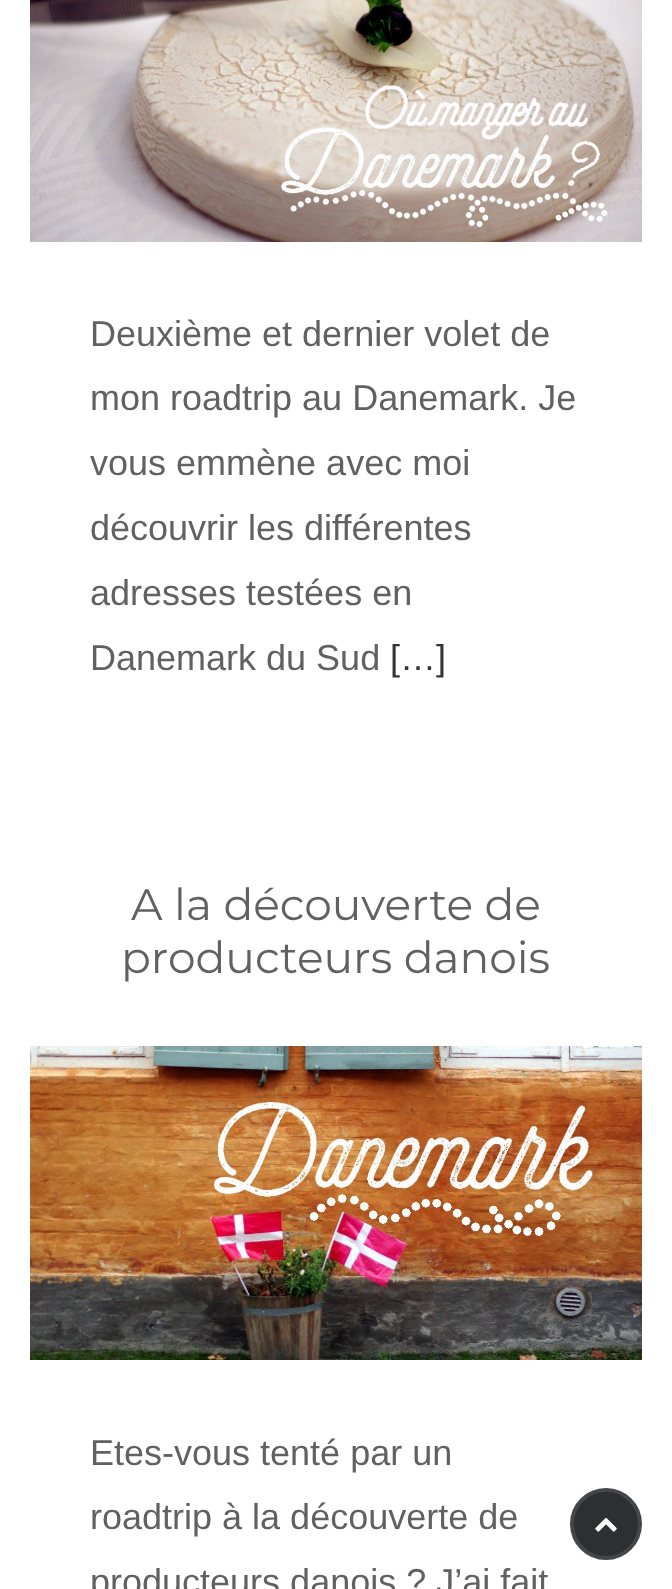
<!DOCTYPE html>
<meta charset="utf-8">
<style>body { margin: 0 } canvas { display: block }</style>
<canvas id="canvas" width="672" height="1589"></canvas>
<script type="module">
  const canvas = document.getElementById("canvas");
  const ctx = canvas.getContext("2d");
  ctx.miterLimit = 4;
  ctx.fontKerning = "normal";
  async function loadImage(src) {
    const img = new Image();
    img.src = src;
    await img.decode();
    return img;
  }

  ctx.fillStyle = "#ffffff";
  ctx.fillRect(0, 0, 672, 1589);
  ctx.drawImage(await loadImage("img1.png"), 30, 0, 612, 242);
  ctx.font = "36px Liberation Sans";
  ctx.fillStyle = "#616161";
  ctx.fillText("Deuxième et dernier volet de", 90, 346);
  ctx.fillText("mon roadtrip au Danemark. Je", 90, 410);
  ctx.fillText("vous emmène avec moi", 90, 475);
  ctx.fillText("découvrir les différentes", 90, 540);
  ctx.fillText("adresses testées en", 90, 605);
  ctx.fillText("Danemark du Sud", 90, 670);
  ctx.fillStyle = "#333333";
  ctx.fillText("[…]", 390, 670);
  ctx.font = "44px Montserrat";
  ctx.fillStyle = "#616161";
  ctx.fillText("A la découverte de", 131, 920);
  ctx.fillText("producteurs danois", 121, 973);
  ctx.drawImage(await loadImage("img2.png"), 30, 1046, 612, 314);
  ctx.font = "36px Liberation Sans";
  ctx.fillText("Etes-vous tenté par un", 90, 1465);
  ctx.fillText("roadtrip à la découverte de", 90, 1529);
  ctx.fillText("producteurs danois ? J’ai fait", 90, 1594);
  ctx.fillStyle = "#2d3032";
  ctx.beginPath();
  ctx.arc(606, 1524, 34, 0, Math.PI * 2);
  ctx.fill();
  ctx.strokeStyle = "#444649";
  ctx.lineWidth = 4;
  ctx.stroke();
  ctx.drawImage(await loadImage("img3.png"), 595, 1517, 22, 15);
</script>
